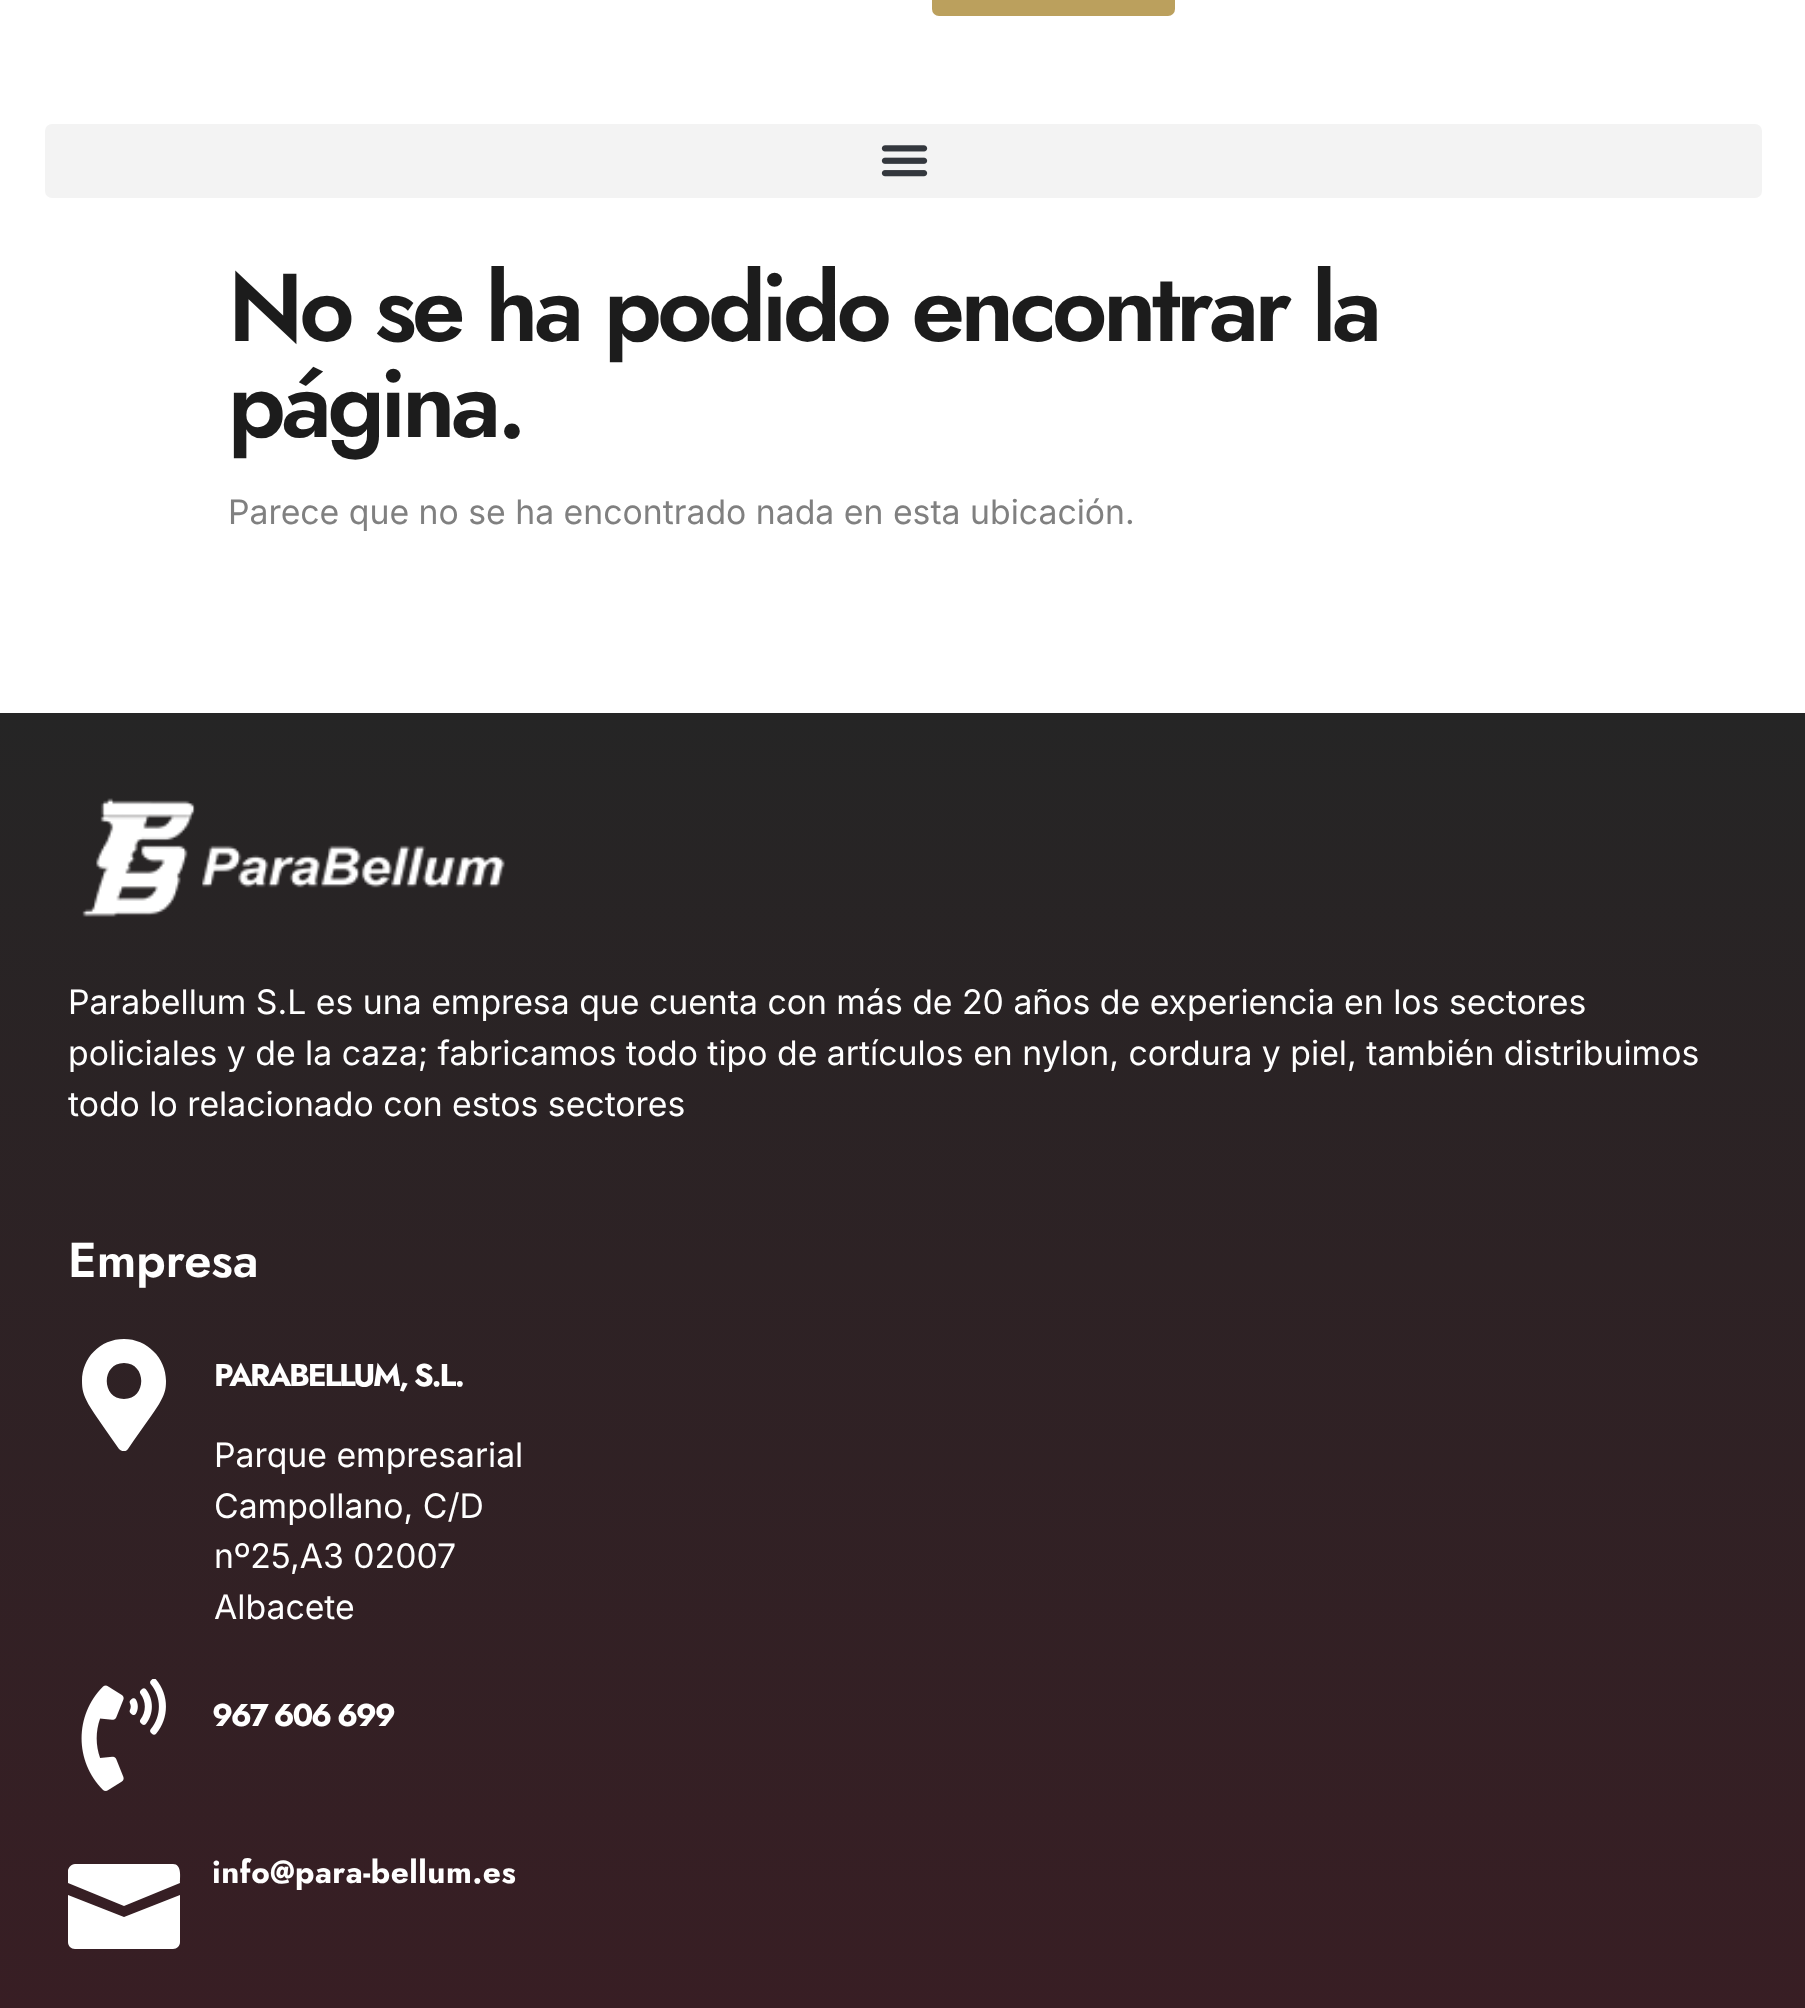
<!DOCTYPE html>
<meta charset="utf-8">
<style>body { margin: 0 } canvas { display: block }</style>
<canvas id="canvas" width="1805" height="2008"></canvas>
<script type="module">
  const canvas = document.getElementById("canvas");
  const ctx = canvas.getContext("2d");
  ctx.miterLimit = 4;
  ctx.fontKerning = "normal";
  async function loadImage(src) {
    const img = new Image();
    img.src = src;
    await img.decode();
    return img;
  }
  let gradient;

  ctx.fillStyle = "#ffffff";
  ctx.fillRect(0, 0, 1805, 2008);
  ctx.fillStyle = "#bba05d";
  ctx.beginPath();
  ctx.roundRect(932, -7, 243, 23, 7);
  ctx.fill();
  ctx.fillStyle = "#f3f3f3";
  ctx.beginPath();
  ctx.roundRect(45, 124, 1717, 74, 7);
  ctx.fill();
  ctx.drawImage(await loadImage("img1.png"), 881, 145, 47, 32);
  ctx.letterSpacing = "-4.5px";
  ctx.font = "600 96.1px Jost";
  ctx.fillStyle = "#1c1c1c";
  ctx.fillText("No se ha podido encontrar la", 228, 341);
  ctx.fillText("página.", 228, 437);
  ctx.letterSpacing = "0px";
  ctx.font = "33.75px Inter";
  ctx.fillStyle = "#808080";
  ctx.fillText("Parece que no se ha encontrado nada en esta ubicación.", 228, 524);
  gradient = ctx.createLinearGradient(903, 713, 903, 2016);
  gradient.addColorStop(0, "#252525");
  gradient.addColorStop(1, "#381e24");
  ctx.fillStyle = gradient;
  ctx.fillRect(0, 713, 1805, 1295);
  ctx.drawImage(await loadImage("img2.png"), 82, 798, 423, 119);
  ctx.fillStyle = "#ffffff";
  ctx.fillText("Parabellum S.L es una empresa que cuenta con más de 20 años de experiencia en los sectores", 68, 1014);
  ctx.fillText("policiales y de la caza; fabricamos todo tipo de artículos en nylon, cordura y piel, también distribuimos", 68, 1065);
  ctx.fillText("todo lo relacionado con estos sectores", 68, 1116);
  ctx.font = "600 49px Jost";
  ctx.fillText("Empresa", 68, 1277);
  ctx.save();
  ctx.beginPath();
  ctx.rect(68, 1339, 112, 112);
  ctx.clip();
  ctx.beginPath();
  ctx.moveTo(119, 1449);
  ctx.bezierCurveTo(87, 1403, 82, 1398, 82, 1381);
  ctx.bezierCurveTo(82, 1358, 100, 1339, 124, 1339);
  ctx.bezierCurveTo(147, 1339, 166, 1358, 166, 1381);
  ctx.bezierCurveTo(166, 1398, 160, 1403, 128, 1449);
  ctx.bezierCurveTo(126, 1452, 122, 1452, 119, 1449);
  ctx.closePath();
  ctx.moveTo(124, 1399);
  ctx.bezierCurveTo(147, 1399, 147, 1363, 124, 1363);
  ctx.bezierCurveTo(101, 1363, 101, 1399, 124, 1399);
  ctx.closePath();
  ctx.fill();
  ctx.restore();
  ctx.letterSpacing = "-2.25px";
  ctx.font = "bold 31.5px Jost";
  ctx.fillText("PARABELLUM, S.L.", 214, 1386);
  ctx.letterSpacing = "0px";
  ctx.font = "33.75px Inter";
  ctx.fillText("Parque empresarial", 214, 1467);
  ctx.fillText("Campollano, C/D", 214, 1518);
  ctx.fillText("nº25,A3 02007", 214, 1568);
  ctx.fillText("Albacete", 214, 1619);
  ctx.drawImage(await loadImage("img3.png"), 81, 1679, 85, 112);
  ctx.letterSpacing = "-2.25px";
  ctx.font = "bold 31.5px Jost";
  ctx.fillText("967 606 699", 212, 1726);
  ctx.beginPath();
  ctx.moveTo(173, 1864);
  ctx.bezierCurveTo(182, 1864, 180, 1877, 180, 1883);
  ctx.lineTo(124, 1906);
  ctx.lineTo(68, 1883);
  ctx.lineTo(68, 1871);
  ctx.bezierCurveTo(68, 1868, 71, 1864, 75, 1864);
  ctx.closePath();
  ctx.moveTo(68, 1895);
  ctx.lineTo(124, 1917);
  ctx.lineTo(180, 1895);
  ctx.lineTo(180, 1942);
  ctx.bezierCurveTo(180, 1946, 177, 1949, 173, 1949);
  ctx.lineTo(75, 1949);
  ctx.bezierCurveTo(71, 1949, 68, 1946, 68, 1942);
  ctx.closePath();
  ctx.fill();
  ctx.letterSpacing = "0.5px";
  ctx.fillText("info@para-bellum.es", 212, 1883);
</script>
